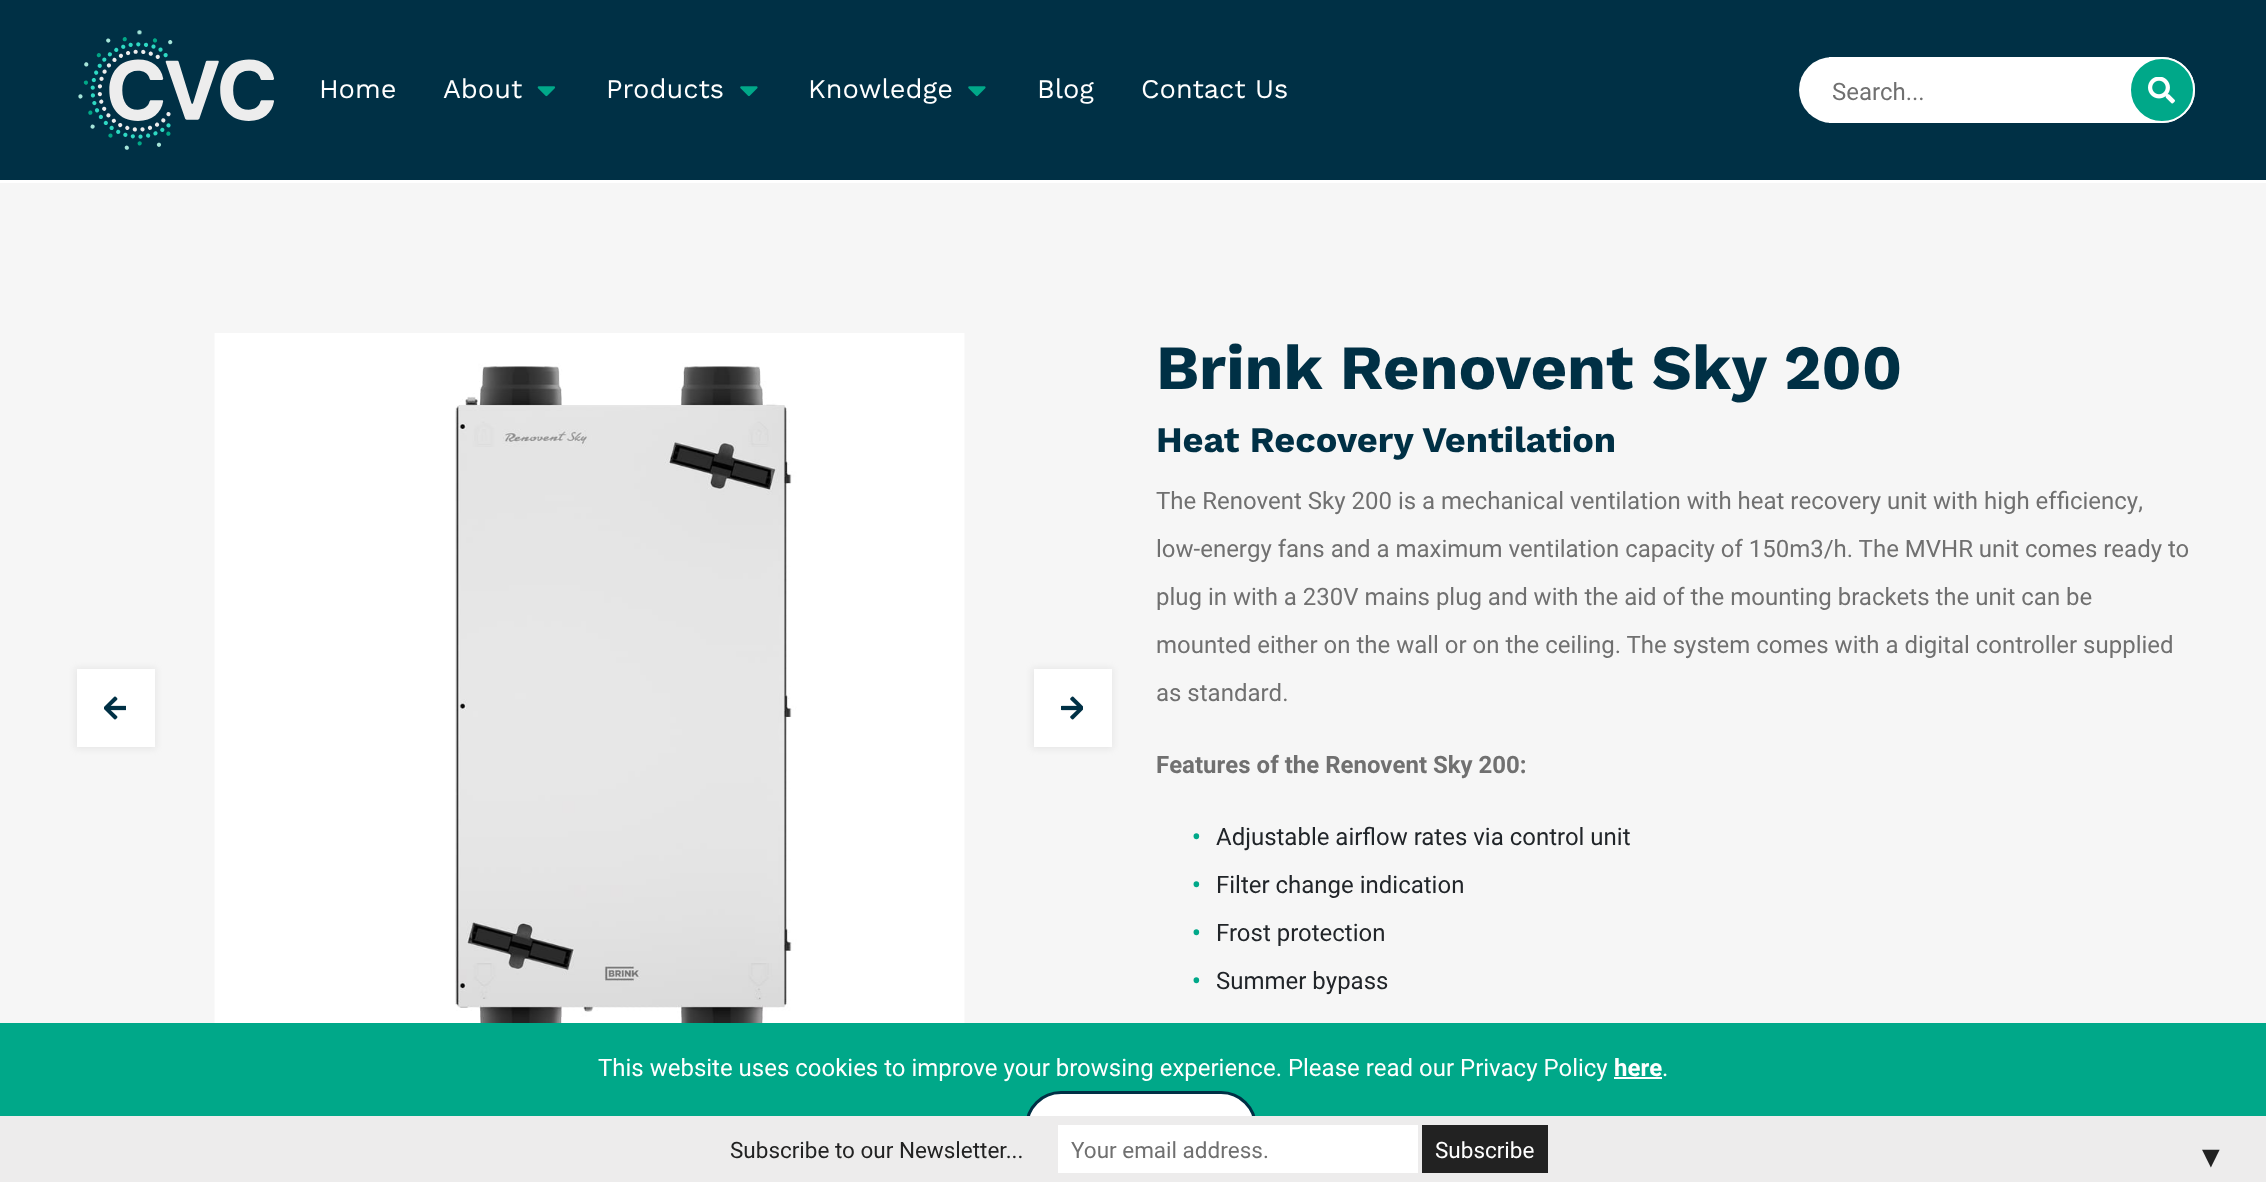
<!DOCTYPE html>
<meta charset="utf-8">
<style>body { margin: 0 } canvas { display: block }</style>
<canvas id="canvas" width="2266" height="1182"></canvas>
<script type="module">
  const canvas = document.getElementById("canvas");
  const ctx = canvas.getContext("2d");
  ctx.miterLimit = 4;
  ctx.fontKerning = "normal";
  async function loadImage(src) {
    const img = new Image();
    img.src = src;
    await img.decode();
    return img;
  }

  ctx.fillStyle = "#f6f6f6";
  ctx.fillRect(0, 0, 2266, 1182);
  ctx.fillStyle = "#003045";
  ctx.fillRect(0, 0, 2266, 180);
  ctx.fillStyle = "#ffffff";
  ctx.fillRect(0, 180, 2266, 3);
  ctx.drawImage(await loadImage("img1.png"), 78, 30, 196, 120);
  ctx.font = "27px Work Sans";
  ctx.fillText("Home", 319, 98);
  ctx.fillText("About", 443, 98);
  ctx.drawImage(await loadImage("img2.png"), 537, 86, 19, 11);
  ctx.fillText("Products", 606, 98);
  ctx.drawImage(await loadImage("img3.png"), 740, 86, 18, 11);
  ctx.fillText("Knowledge", 808, 98);
  ctx.drawImage(await loadImage("img3.png"), 968, 86, 18, 11);
  ctx.fillText("Blog", 1037, 98);
  ctx.fillText("Contact Us", 1141, 98);
  ctx.beginPath();
  ctx.roundRect(1799, 57, 396, 66, 33);
  ctx.fill();
  ctx.fillRect(1829, 57, 3, 66);
  ctx.font = "24px Roboto";
  ctx.fillStyle = "#707070";
  ctx.fillText("Search...", 1832, 100);
  ctx.fillStyle = "#00a889";
  ctx.beginPath();
  ctx.arc(2162, 90, 32, 0, Math.PI * 2);
  ctx.fill();
  ctx.strokeStyle = "#ffffff";
  ctx.lineWidth = 2;
  ctx.stroke();
  ctx.drawImage(await loadImage("img4.png"), 2148, 77, 27, 27);
  ctx.drawImage(await loadImage("img5.png"), 214, 333, 751, 690);
  ctx.fillStyle = "rgba(191, 191, 191, 0.28)";
  ctx.filter = "blur(3px)";
  ctx.beginPath();
  ctx.rect(75, 668, 81, 81);
  ctx.fill();
  ctx.filter = "none";
  ctx.fillStyle = "#ffffff";
  ctx.fillRect(77, 669, 78, 78);
  ctx.drawImage(await loadImage("img6.png"), 104, 696, 22, 24);
  ctx.fillStyle = "rgba(191, 191, 191, 0.28)";
  ctx.filter = "blur(3px)";
  ctx.beginPath();
  ctx.rect(1032, 668, 81, 81);
  ctx.fill();
  ctx.filter = "none";
  ctx.fillStyle = "#ffffff";
  ctx.fillRect(1034, 669, 78, 78);
  ctx.drawImage(await loadImage("img7.png"), 1061, 696, 22, 24);
  ctx.font = "bold 63px Work Sans";
  ctx.fillStyle = "#003045";
  ctx.fillText("Brink Renovent Sky 200", 1156, 389);
  ctx.font = "bold 36px Work Sans";
  ctx.fillText("Heat Recovery Ventilation", 1156, 452);
  ctx.font = "24px Roboto";
  ctx.fillStyle = "#707070";
  ctx.fillText("The Renovent Sky 200 is a mechanical ventilation with heat recovery unit with high efficiency,", 1156, 509);
  ctx.fillText("low-energy fans and a maximum ventilation capacity of 150m3/h. The MVHR unit comes ready to", 1156, 557);
  ctx.fillText("plug in with a 230V mains plug and with the aid of the mounting brackets the unit can be", 1156, 605);
  ctx.fillText("mounted either on the wall or on the ceiling. The system comes with a digital controller supplied", 1156, 653);
  ctx.fillText("as standard.", 1156, 701);
  ctx.font = "bold 24px Roboto";
  ctx.fillText("Features of the Renovent Sky 200:", 1156, 773);
  ctx.fillStyle = "#00a889";
  ctx.fillText("•", 1192, 845);
  ctx.font = "24px Roboto";
  ctx.fillStyle = "#212529";
  ctx.fillText("Adjustable airflow rates via control unit", 1216, 845);
  ctx.font = "bold 24px Roboto";
  ctx.fillStyle = "#00a889";
  ctx.fillText("•", 1192, 893);
  ctx.font = "24px Roboto";
  ctx.fillStyle = "#212529";
  ctx.fillText("Filter change indication", 1216, 893);
  ctx.font = "bold 24px Roboto";
  ctx.fillStyle = "#00a889";
  ctx.fillText("•", 1192, 941);
  ctx.font = "24px Roboto";
  ctx.fillStyle = "#212529";
  ctx.fillText("Frost protection", 1216, 941);
  ctx.font = "bold 24px Roboto";
  ctx.fillStyle = "#00a889";
  ctx.fillText("•", 1192, 989);
  ctx.font = "24px Roboto";
  ctx.fillStyle = "#212529";
  ctx.fillText("Summer bypass", 1216, 989);
  ctx.fillStyle = "#00a889";
  ctx.fillRect(0, 1023, 2266, 93);
  ctx.fillStyle = "#ffffff";
  ctx.fillText("This website uses cookies to improve your browsing experience. Please read our Privacy Policy", 598, 1076);
  ctx.font = "bold 24px Roboto";
  ctx.fillText("here", 1614, 1076);
  ctx.fillRect(1614, 1077, 48, 2);
  ctx.font = "24px Roboto";
  ctx.fillText(".", 1662, 1076);
  ctx.beginPath();
  ctx.roundRect(1026.5, 1092.5, 229, 69, 34.5);
  ctx.fill();
  ctx.strokeStyle = "#003045";
  ctx.lineWidth = 3;
  ctx.stroke();
  ctx.fillStyle = "#edecec";
  ctx.fillRect(0, 1116, 2266, 66);
  ctx.font = "22.5px Roboto";
  ctx.fillStyle = "#222222";
  ctx.fillText("Subscribe to our Newsletter...", 730, 1158);
  ctx.fillStyle = "#ffffff";
  ctx.fillRect(1058, 1125, 360, 48);
  ctx.fillStyle = "#707070";
  ctx.fillText("Your email address.", 1071, 1158);
  ctx.fillStyle = "#222222";
  ctx.fillRect(1422, 1125, 126, 48);
  ctx.fillStyle = "#ffffff";
  ctx.fillText("Subscribe", 1435, 1158);
  ctx.font = "30px Liberation Sans";
  ctx.fillStyle = "#222222";
  ctx.fillText("▼", 2196, 1167);
</script>
